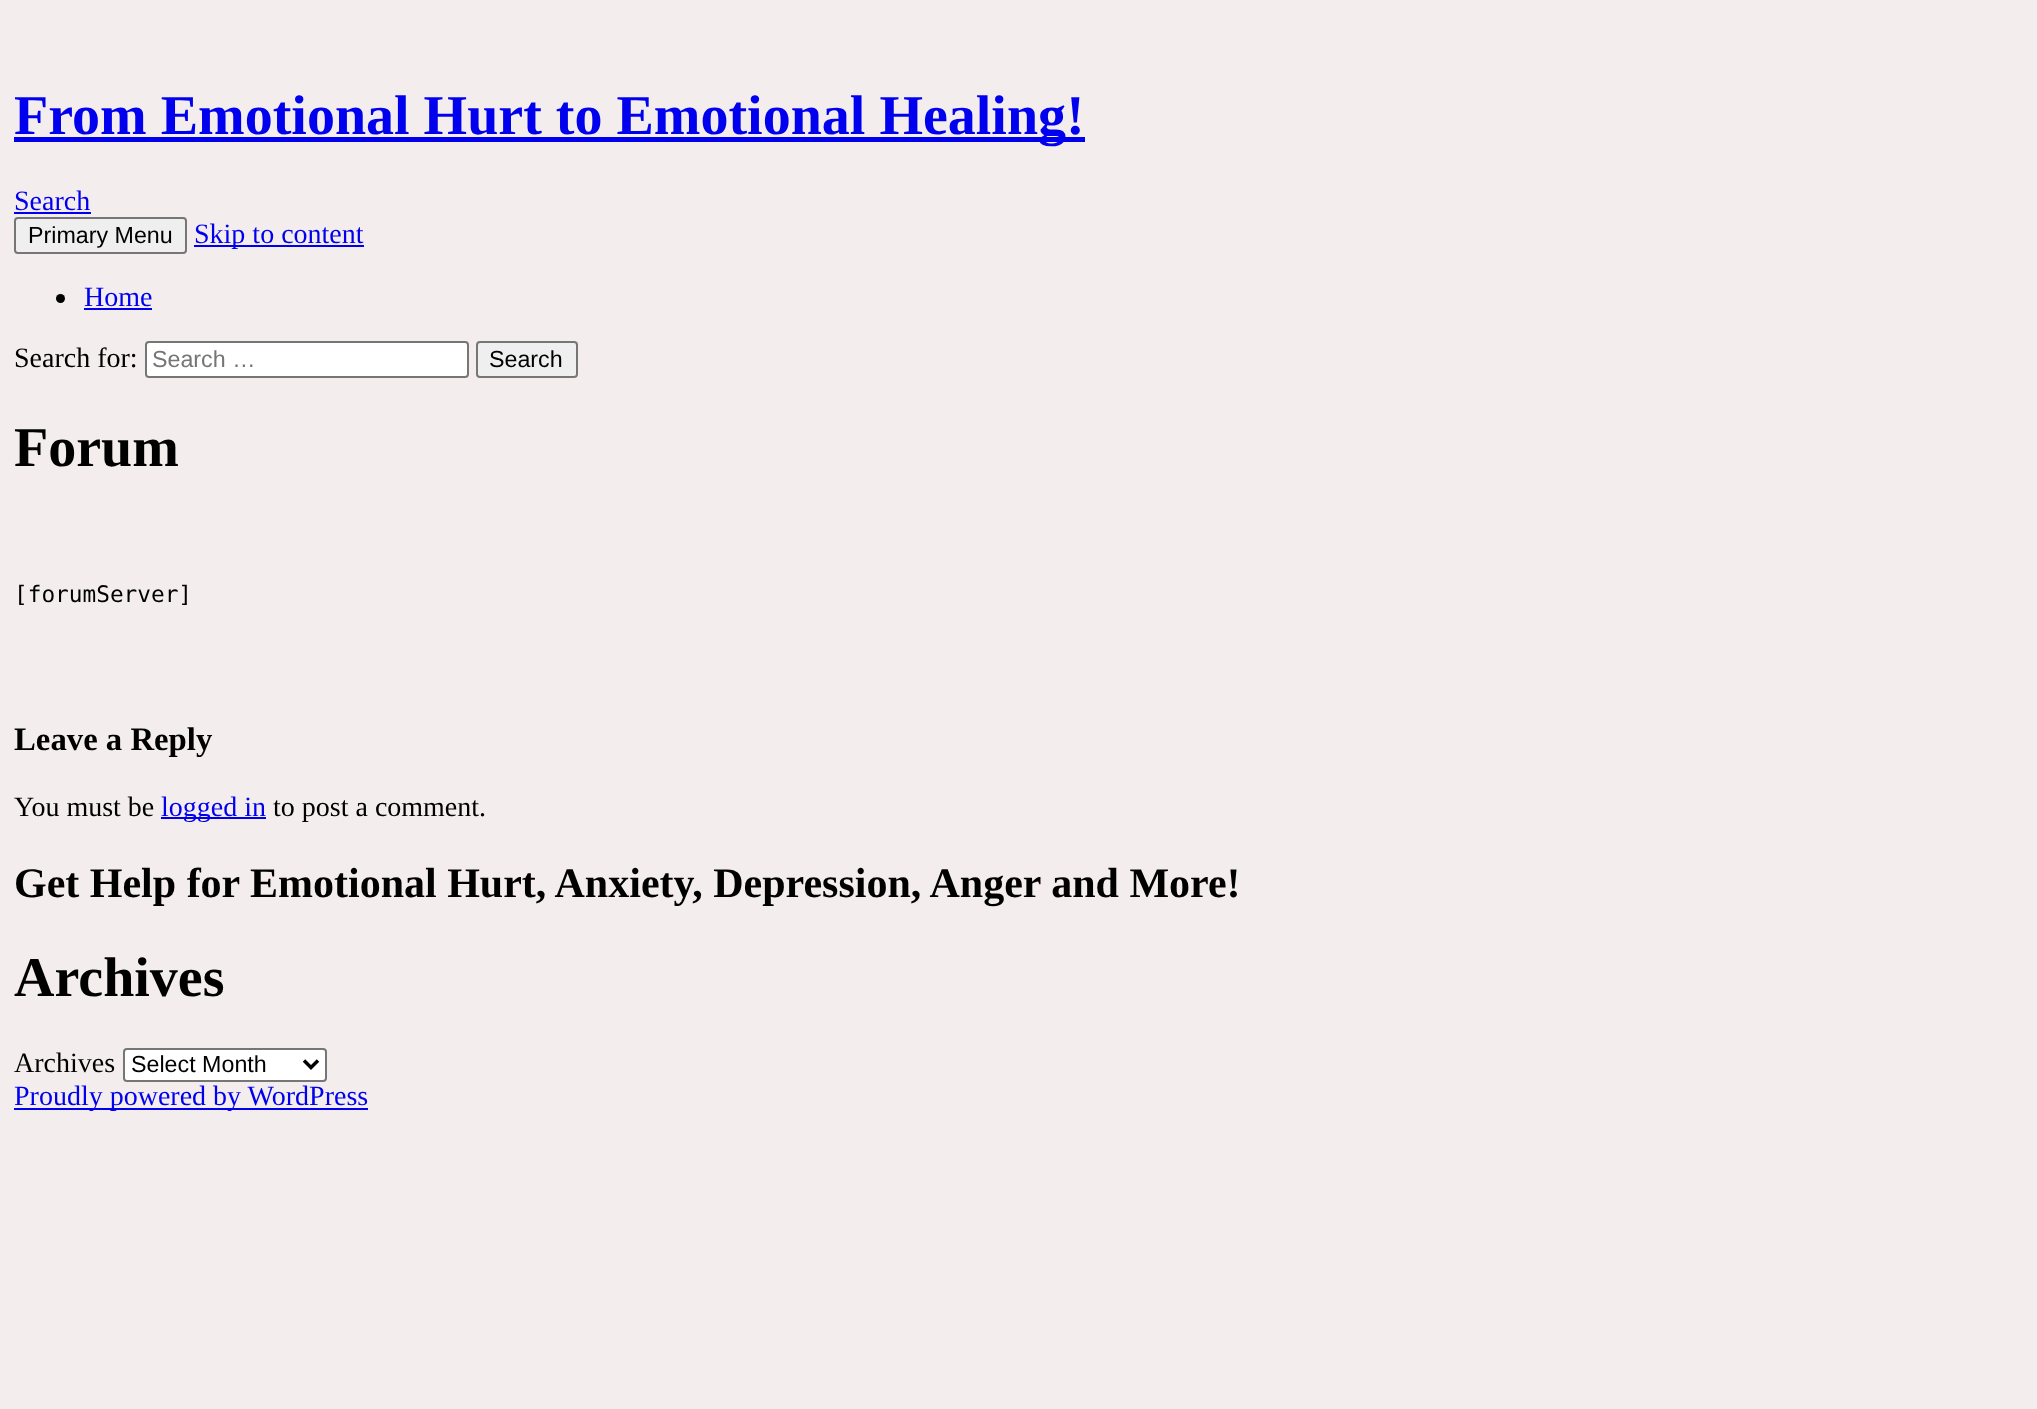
<!DOCTYPE html>
<meta charset="utf-8">
<style>body { margin: 0 } canvas { display: block }</style>
<canvas id="canvas" width="2037" height="1409"></canvas>
<script type="module">
  const canvas = document.getElementById("canvas");
  const ctx = canvas.getContext("2d");
  ctx.miterLimit = 4;
  ctx.fontKerning = "normal";

  ctx.fillStyle = "#f4eded";
  ctx.fillRect(0, 0, 2037, 1409);
  ctx.fillStyle = "#0000ee";
  ctx.fillRect(14, 137, 1071, 5);
  ctx.font = "bold 56px Liberation Serif";
  ctx.fillText("From Emotional Hurt to Emotional Healing!", 14, 134);
  ctx.font = "28px Liberation Serif";
  ctx.fillText("Search", 14, 210);
  ctx.fillRect(14, 212, 77, 2);
  ctx.fillStyle = "#efefef";
  ctx.beginPath();
  ctx.roundRect(15, 218, 171, 35, 3);
  ctx.fill();
  ctx.strokeStyle = "#767676";
  ctx.lineWidth = 2;
  ctx.stroke();
  ctx.font = "23.25px Liberation Sans";
  ctx.fillStyle = "#000000";
  ctx.fillText("Primary Menu", 28, 243);
  ctx.fillStyle = "#0000ee";
  ctx.fillRect(194, 245, 170, 2);
  ctx.font = "28px Liberation Serif";
  ctx.fillText("Skip to content", 194, 243);
  ctx.fillStyle = "#000000";
  ctx.beginPath();
  ctx.arc(60.5, 298.5, 4.5, 0, Math.PI * 2);
  ctx.fill();
  ctx.fillStyle = "#0000ee";
  ctx.fillText("Home", 84, 306);
  ctx.fillRect(84, 308, 68, 2);
  ctx.fillStyle = "#000000";
  ctx.fillText("Search for:", 14, 367);
  ctx.fillStyle = "#ffffff";
  ctx.beginPath();
  ctx.roundRect(146, 342, 322, 35, 3);
  ctx.fill();
  ctx.stroke();
  ctx.font = "23.25px Liberation Sans";
  ctx.fillStyle = "#757575";
  ctx.fillText("Search …", 152, 367);
  ctx.fillStyle = "#efefef";
  ctx.beginPath();
  ctx.roundRect(477, 342, 100, 35, 3);
  ctx.fill();
  ctx.stroke();
  ctx.fillStyle = "#000000";
  ctx.fillText("Search", 489, 367);
  ctx.font = "bold 56px Liberation Serif";
  ctx.fillText("Forum", 14, 466);
  ctx.font = "22.75px DejaVu Sans Mono";
  ctx.fillText("[forumServer]", 14, 602);
  ctx.font = "bold 32.75px Liberation Serif";
  ctx.fillText("Leave a Reply", 14, 750);
  ctx.font = "28px Liberation Serif";
  ctx.fillText("You must be", 14, 816);
  ctx.fillStyle = "#0000ee";
  ctx.fillRect(161, 817, 105, 2);
  ctx.fillText("logged in", 161, 816);
  ctx.fillStyle = "#000000";
  ctx.fillText("to post a comment.", 273, 816);
  ctx.font = "bold 42px Liberation Serif";
  ctx.fillText("Get Help for Emotional Hurt, Anxiety, Depression, Anger and More!", 14, 897);
  ctx.font = "bold 56px Liberation Serif";
  ctx.fillText("Archives", 14, 996);
  ctx.font = "28px Liberation Serif";
  ctx.fillText("Archives", 14, 1072);
  ctx.fillStyle = "#ffffff";
  ctx.beginPath();
  ctx.roundRect(124, 1049, 202, 32, 3);
  ctx.fill();
  ctx.stroke();
  ctx.beginPath();
  ctx.moveTo(304, 1060.5);
  ctx.lineTo(311, 1067.5);
  ctx.lineTo(318, 1060.5);
  ctx.strokeStyle = "#000000";
  ctx.lineWidth = 3.5;
  ctx.stroke();
  ctx.font = "23.25px Liberation Sans";
  ctx.fillStyle = "#000000";
  ctx.fillText("Select Month", 131, 1072);
  ctx.fillStyle = "#0000ee";
  ctx.fillRect(14, 1108, 354, 2);
  ctx.font = "28px Liberation Serif";
  ctx.fillText("Proudly powered by WordPress", 14, 1105);
</script>
